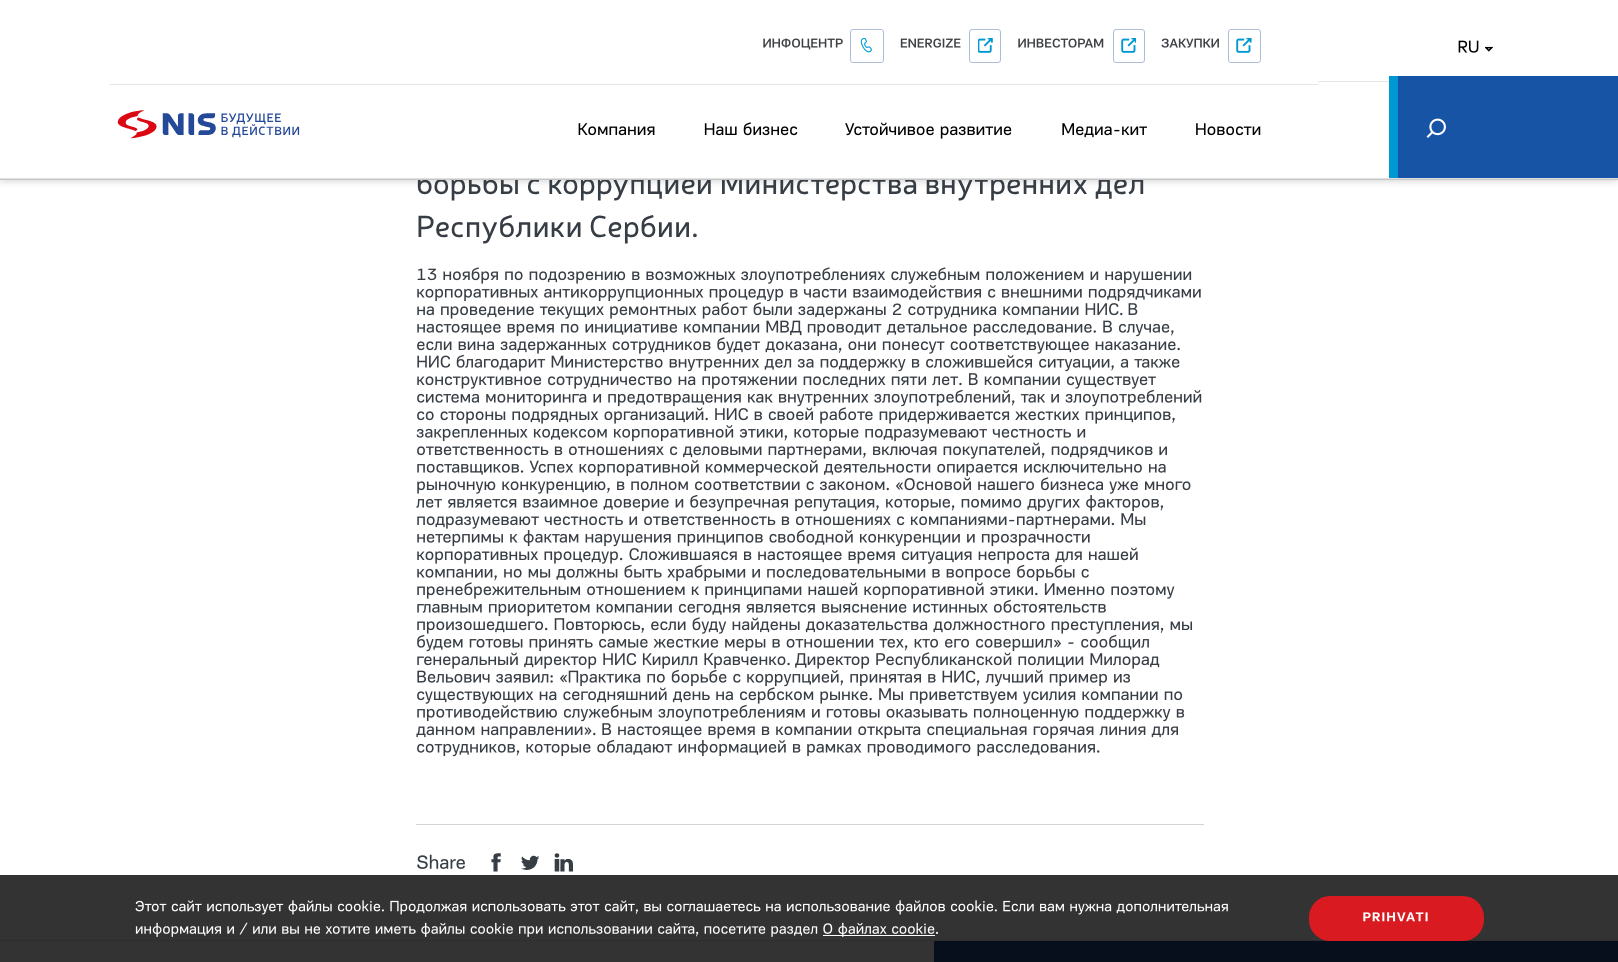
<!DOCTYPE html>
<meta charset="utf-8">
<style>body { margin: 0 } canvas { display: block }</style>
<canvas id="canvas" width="1618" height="962"></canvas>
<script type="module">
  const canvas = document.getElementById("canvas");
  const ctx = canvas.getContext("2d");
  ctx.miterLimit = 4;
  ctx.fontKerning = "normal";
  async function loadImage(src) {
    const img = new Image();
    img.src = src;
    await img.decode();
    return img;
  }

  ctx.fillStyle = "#ffffff";
  ctx.fillRect(0, 0, 1618, 962);
  ctx.fillStyle = "#333333";
  ctx.fillRect(0, 875, 1618, 87);
  ctx.fillStyle = "rgba(0, 0, 0, 0.22)";
  ctx.filter = "blur(4px)";
  ctx.beginPath();
  ctx.rect(-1, 0, 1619, 180);
  ctx.fill();
  ctx.filter = "none";
  ctx.font = "30.6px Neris";
  ctx.fillStyle = "#373d44";
  ctx.fillText("борьбы с коррупцией Министерства внутренних дел", 416, 194);
  ctx.fillStyle = "#ffffff";
  ctx.fillRect(0, 0, 1618, 178);
  ctx.fillStyle = "#c7c7c7";
  ctx.fillRect(0, 179, 1618, 1);
  ctx.fillStyle = "#e0e0e0";
  ctx.fillRect(0, 178, 1618, 1);
  ctx.fillStyle = "#e6e6e6";
  ctx.fillRect(110, 84, 1208, 1);
  ctx.drawImage(await loadImage("img1.png"), 763, 38, 80, 12);
  ctx.beginPath();
  ctx.roundRect(850.5, 29.5, 33, 33, 2.5);
  ctx.strokeStyle = "#aebdda";
  ctx.stroke();
  ctx.drawImage(await loadImage("img2.png"), 860, 38, 12, 15);
  ctx.drawImage(await loadImage("img3.png"), 900, 38, 61, 10);
  ctx.beginPath();
  ctx.roundRect(969.5, 29.5, 31, 33, 2.5);
  ctx.stroke();
  ctx.drawImage(await loadImage("img4.png"), 978, 38, 15, 15);
  ctx.drawImage(await loadImage("img5.png"), 1018, 38, 86, 10);
  ctx.beginPath();
  ctx.roundRect(1113.5, 29.5, 31, 33, 2.5);
  ctx.stroke();
  ctx.drawImage(await loadImage("img6.png"), 1121, 38, 15, 15);
  ctx.drawImage(await loadImage("img7.png"), 1161, 38, 58, 10);
  ctx.beginPath();
  ctx.roundRect(1228.5, 29.5, 32, 33, 2.5);
  ctx.stroke();
  ctx.drawImage(await loadImage("img8.png"), 1236, 38, 16, 15);
  ctx.fillRect(1318, 81, 71, 1);
  ctx.drawImage(await loadImage("img9.png"), 1458, 40, 21, 13);
  ctx.drawImage(await loadImage("img10.png"), 1485, 46, 8, 6);
  ctx.drawImage(await loadImage("img11.png"), 117, 110, 183, 29);
  ctx.drawImage(await loadImage("img12.png"), 578, 123, 77, 13);
  ctx.drawImage(await loadImage("img13.png"), 704, 122, 94, 14);
  ctx.drawImage(await loadImage("img14.png"), 845, 122, 167, 17);
  ctx.drawImage(await loadImage("img15.png"), 1062, 123, 85, 15);
  ctx.drawImage(await loadImage("img16.png"), 1196, 123, 65, 13);
  ctx.fillStyle = "#1854a5";
  ctx.fillRect(1398, 76, 220, 102);
  ctx.fillStyle = "#0098d3";
  ctx.fillRect(1389, 76, 9, 102);
  ctx.drawImage(await loadImage("img17.png"), 1426, 118, 20, 20);
  ctx.fillStyle = "#373d44";
  ctx.fillText("Республики Сербии.", 416, 237);
  ctx.drawImage(await loadImage("img18.png"), 417, 267, 775, 17);
  ctx.drawImage(await loadImage("img19.png"), 417, 285, 784, 17);
  ctx.drawImage(await loadImage("img20.png"), 417, 302, 706, 17);
  ctx.drawImage(await loadImage("img21.png"), 1128, 303, 10, 12);
  ctx.drawImage(await loadImage("img22.png"), 417, 320, 757, 17);
  ctx.drawImage(await loadImage("img23.png"), 417, 337, 763, 17);
  ctx.drawImage(await loadImage("img24.png"), 417, 354, 763, 18);
  ctx.drawImage(await loadImage("img25.png"), 417, 373, 739, 16);
  ctx.drawImage(await loadImage("img26.png"), 417, 389, 785, 18);
  ctx.drawImage(await loadImage("img27.png"), 417, 407, 758, 17);
  ctx.drawImage(await loadImage("img28.png"), 416, 425, 670, 17);
  ctx.drawImage(await loadImage("img29.png"), 417, 442, 750, 17);
  ctx.drawImage(await loadImage("img30.png"), 417, 460, 749, 17);
  ctx.drawImage(await loadImage("img31.png"), 417, 481, 472, 13);
  ctx.drawImage(await loadImage("img32.png"), 896, 477, 295, 17);
  ctx.drawImage(await loadImage("img33.png"), 416, 494, 748, 18);
  ctx.drawImage(await loadImage("img34.png"), 417, 513, 729, 16);
  ctx.drawImage(await loadImage("img35.png"), 417, 529, 673, 18);
  ctx.drawImage(await loadImage("img36.png"), 417, 547, 721, 17);
  ctx.drawImage(await loadImage("img37.png"), 417, 564, 672, 18);
  ctx.drawImage(await loadImage("img38.png"), 417, 582, 758, 17);
  ctx.drawImage(await loadImage("img39.png"), 417, 599, 689, 18);
  ctx.drawImage(await loadImage("img40.png"), 417, 617, 776, 17);
  ctx.drawImage(await loadImage("img41.png"), 417, 634, 732, 18);
  ctx.drawImage(await loadImage("img42.png"), 417, 652, 373, 17);
  ctx.drawImage(await loadImage("img43.png"), 795, 652, 365, 17);
  ctx.drawImage(await loadImage("img44.png"), 417, 669, 713, 18);
  ctx.drawImage(await loadImage("img45.png"), 417, 687, 766, 17);
  ctx.drawImage(await loadImage("img46.png"), 417, 704, 768, 18);
  ctx.drawImage(await loadImage("img47.png"), 416, 726, 180, 13);
  ctx.drawImage(await loadImage("img48.png"), 602, 723, 576, 16);
  ctx.drawImage(await loadImage("img49.png"), 417, 739, 683, 18);
  ctx.fillStyle = "#d3d3d3";
  ctx.fillRect(416, 824, 788, 1);
  ctx.drawImage(await loadImage("img50.png"), 417, 854, 48, 15);
  ctx.drawImage(await loadImage("img51.png"), 491, 853, 10, 19);
  ctx.drawImage(await loadImage("img52.png"), 521, 855, 18, 15);
  ctx.drawImage(await loadImage("img53.png"), 554, 853, 19, 19);
  ctx.drawImage(await loadImage("img54.png"), 135, 900, 1093, 15);
  ctx.drawImage(await loadImage("img55.png"), 135, 922, 683, 15);
  ctx.fillStyle = "#ffffff";
  ctx.fillRect(823, 935, 112, 1);
  ctx.drawImage(await loadImage("img56.png"), 823, 922, 112, 15);
  ctx.drawImage(await loadImage("img57.png"), 936, 931, 2, 3);
  ctx.fillStyle = "#2e2e2f";
  ctx.fillRect(0, 940, 1618, 1);
  ctx.fillStyle = "#d91a21";
  ctx.beginPath();
  ctx.roundRect(1309, 896, 175, 45, 21);
  ctx.fill();
  ctx.drawImage(await loadImage("img58.png"), 1363, 912, 65, 10);
  ctx.fillStyle = "#070e1c";
  ctx.fillRect(934, 941, 684, 21);
</script>
